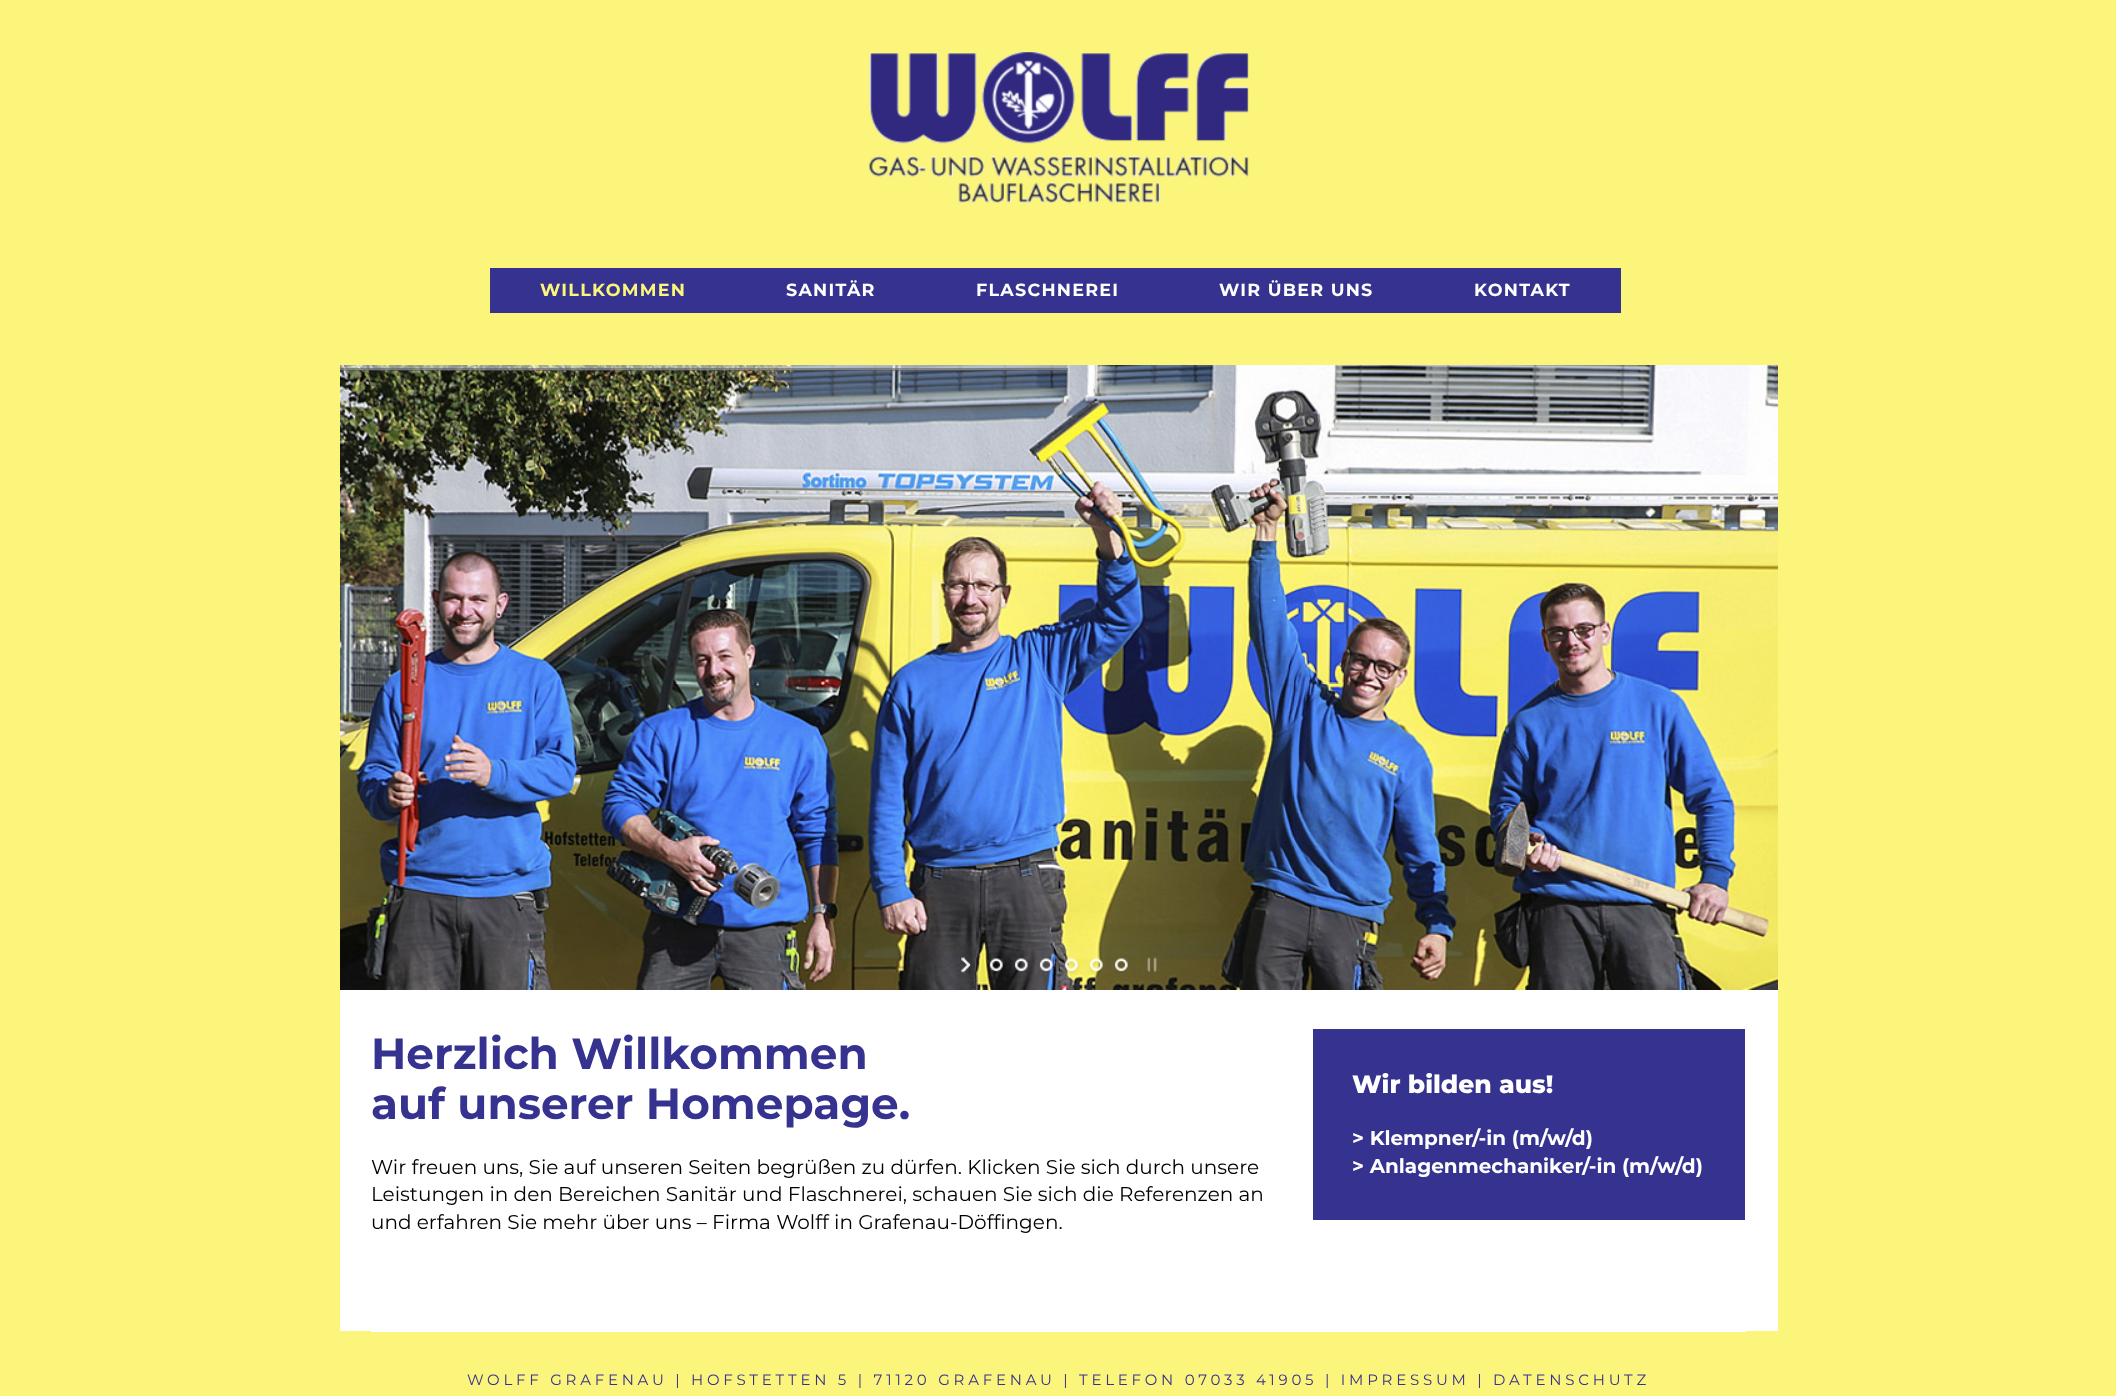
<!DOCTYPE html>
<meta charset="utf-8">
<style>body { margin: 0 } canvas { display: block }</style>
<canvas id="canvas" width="2116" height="1396"></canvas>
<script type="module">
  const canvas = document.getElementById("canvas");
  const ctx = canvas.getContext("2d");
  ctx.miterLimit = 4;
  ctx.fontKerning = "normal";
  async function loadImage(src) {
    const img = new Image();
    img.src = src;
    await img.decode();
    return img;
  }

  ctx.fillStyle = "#fbf57b";
  ctx.fillRect(0, 0, 2116, 1396);
  ctx.drawImage(await loadImage("img1.png"), 868, 52, 381, 151);
  ctx.fillStyle = "#36328f";
  ctx.fillRect(490, 268, 1131, 45);
  ctx.letterSpacing = "1.25px";
  ctx.font = "bold 17.5px Montserrat";
  ctx.fillStyle = "#fbf57b";
  ctx.fillText("WILLKOMMEN", 540, 296);
  ctx.fillStyle = "#ffffff";
  ctx.fillText("SANITÄR", 786, 296);
  ctx.fillText("FLASCHNEREI", 976, 296);
  ctx.fillText("WIR ÜBER UNS", 1219, 296);
  ctx.fillText("KONTAKT", 1474, 296);
  ctx.fillRect(340, 990, 1438, 341);
  ctx.drawImage(await loadImage("img2.png"), 340, 365, 1438, 625);
  ctx.fillStyle = "rgba(255, 255, 255, 0.55)";
  ctx.fillRect(340, 365, 728, 5);
  ctx.fillStyle = "rgba(85, 85, 85, 0.55)";
  ctx.fillRect(340, 368, 728, 3);
  ctx.drawImage(await loadImage("img3.png"), 961, 957, 10, 16);
  ctx.drawImage(await loadImage("img4.png"), 989, 958, 14, 14);
  ctx.drawImage(await loadImage("img5.png"), 1014, 958, 14, 14);
  ctx.drawImage(await loadImage("img6.png"), 1039, 958, 14, 15);
  ctx.drawImage(await loadImage("img7.png"), 1064, 958, 15, 16);
  ctx.drawImage(await loadImage("img8.png"), 1089, 958, 14, 16);
  ctx.drawImage(await loadImage("img9.png"), 1114, 958, 14, 16);
  ctx.drawImage(await loadImage("img10.png"), 1147, 957, 11, 16);
  ctx.letterSpacing = "0px";
  ctx.font = "bold 43.75px Montserrat";
  ctx.fillStyle = "#36328f";
  ctx.fillText("Herzlich Willkommen", 371, 1069);
  ctx.fillText("auf unserer Homepage.", 371, 1119);
  ctx.font = "20px Montserrat";
  ctx.fillStyle = "#000000";
  ctx.fillText("Wir freuen uns, Sie auf unseren Seiten begrüßen zu dürfen. Klicken Sie sich durch unsere", 371, 1174);
  ctx.fillText("Leistungen in den Bereichen Sanitär und Flaschnerei, schauen Sie sich die Referenzen an", 371, 1201);
  ctx.fillText("und erfahren Sie mehr über uns – Firma Wolff in Grafenau-Döffingen.", 371, 1229);
  ctx.fillStyle = "#36328f";
  ctx.fillRect(1313, 1029, 432, 191);
  ctx.font = "800 25px Montserrat";
  ctx.fillStyle = "#ffffff";
  ctx.fillText("Wir bilden aus!", 1352, 1093);
  ctx.font = "bold 20px Montserrat";
  ctx.fillText("> Klempner/-in (m/w/d)", 1352, 1145);
  ctx.fillText("> Anlagenmechaniker/-in (m/w/d)", 1352, 1173);
  ctx.fillRect(371, 1331, 1375, 1);
  ctx.letterSpacing = "3.75px";
  ctx.font = "15px Montserrat";
  ctx.fillStyle = "#36328f";
  ctx.fillText("WOLFF GRAFENAU | HOFSTETTEN 5 | 71120 GRAFENAU | TELEFON 07033 41905 | IMPRESSUM | DATENSCHUTZ", 467, 1385);
</script>
